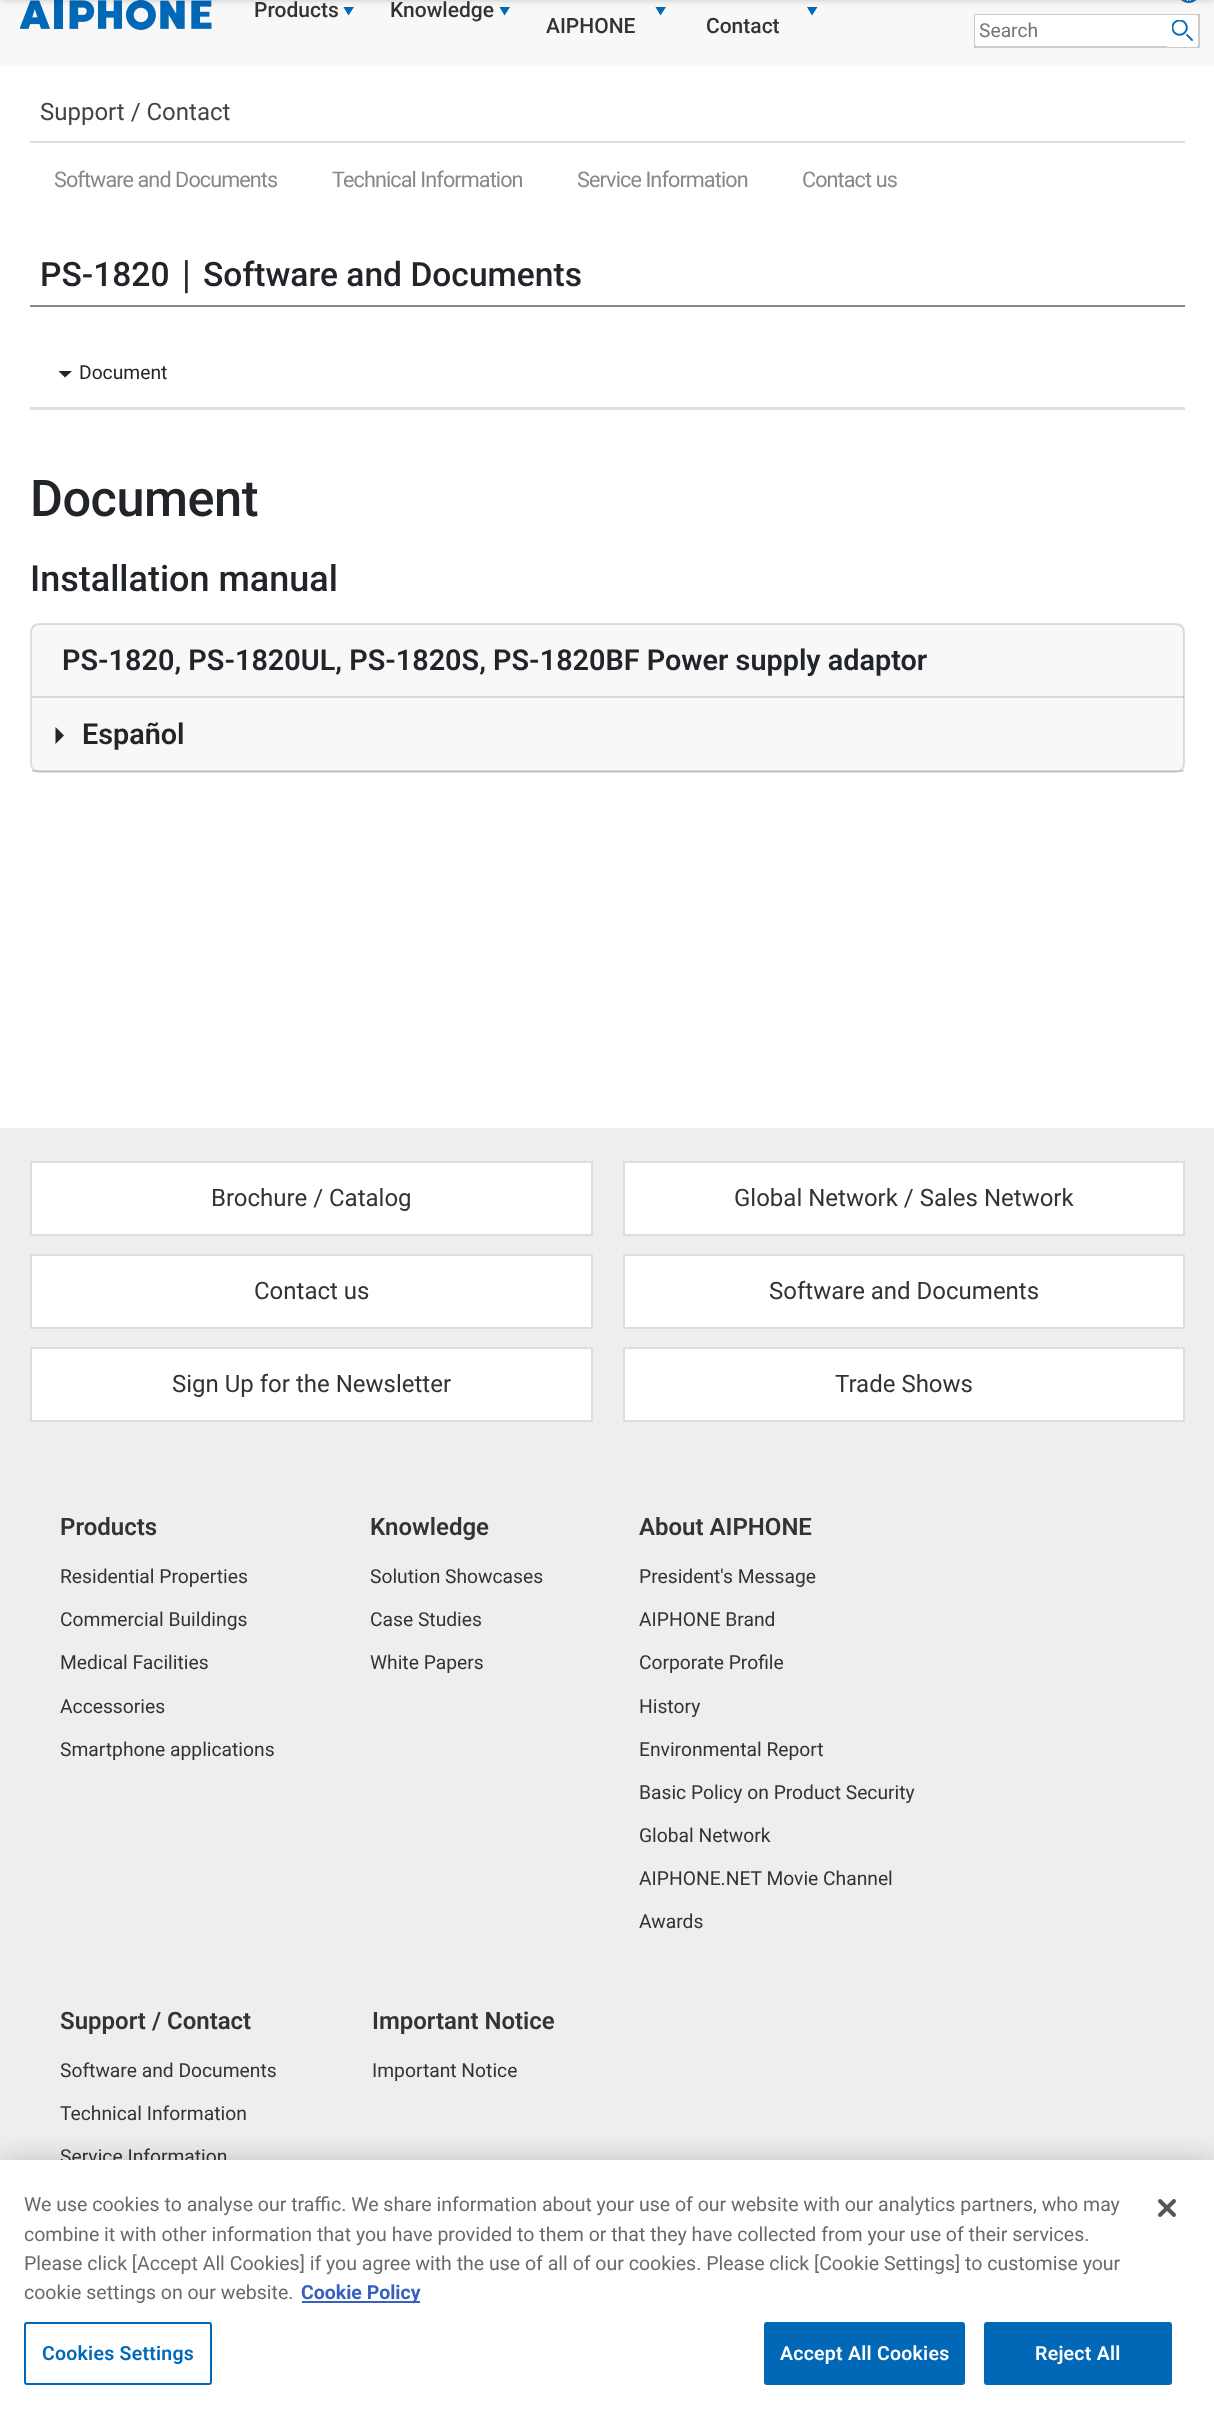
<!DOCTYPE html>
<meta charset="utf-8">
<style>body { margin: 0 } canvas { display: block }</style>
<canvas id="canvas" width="1214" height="2415"></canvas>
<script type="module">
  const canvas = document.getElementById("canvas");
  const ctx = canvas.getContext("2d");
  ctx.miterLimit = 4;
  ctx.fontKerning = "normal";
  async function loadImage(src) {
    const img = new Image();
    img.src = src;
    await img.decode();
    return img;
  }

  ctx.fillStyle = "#ffffff";
  ctx.fillRect(0, 0, 1214, 2415);
  ctx.fillStyle = "#f8f8f8";
  ctx.fillRect(0, 0, 1214, 66);
  ctx.drawImage(await loadImage("img1.png"), 20, 0, 192, 30);
  ctx.fillStyle = "#0068b6";
  ctx.beginPath();
  ctx.moveTo(354, 7);
  ctx.lineTo(348.5, 15.5);
  ctx.lineTo(343.5, 7);
  ctx.closePath();
  ctx.fill();
  ctx.beginPath();
  ctx.moveTo(510, 7);
  ctx.lineTo(504.5, 15.5);
  ctx.lineTo(499.5, 7);
  ctx.closePath();
  ctx.fill();
  ctx.beginPath();
  ctx.moveTo(666, 7);
  ctx.lineTo(660.5, 15.5);
  ctx.lineTo(655.5, 7);
  ctx.closePath();
  ctx.fill();
  ctx.beginPath();
  ctx.moveTo(817.5, 7);
  ctx.lineTo(812, 15.5);
  ctx.lineTo(807, 7);
  ctx.closePath();
  ctx.fill();
  ctx.drawImage(await loadImage("img2.png"), 1181, 0, 16, 3);
  ctx.fillStyle = "rgba(0, 0, 0, 0.4)";
  ctx.filter = "blur(5px)";
  ctx.beginPath();
  ctx.rect(0, -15, 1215, 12);
  ctx.fill();
  ctx.filter = "none";
  ctx.font = "500 21px Roboto";
  ctx.fillStyle = "#333333";
  ctx.fillText("Products", 254, 17);
  ctx.fillText("Knowledge", 390, 17);
  ctx.fillText("AIPHONE", 546, 33);
  ctx.fillText("Contact", 706, 33);
  ctx.fillStyle = "#ffffff";
  ctx.beginPath();
  ctx.rect(975, 15, 224, 32);
  ctx.fill();
  ctx.strokeStyle = "#cccccc";
  ctx.lineWidth = 2;
  ctx.stroke();
  ctx.fillRect(975, 15, 192, 30);
  ctx.font = "19.25px Roboto";
  ctx.fillStyle = "#757575";
  ctx.fillText("Search", 979, 37);
  ctx.fillStyle = "#ffffff";
  ctx.fillRect(1167, 15, 30, 32);
  ctx.drawImage(await loadImage("img3.png"), 1172, 20, 21, 21);
  ctx.fillStyle = "#dddddd";
  ctx.fillRect(30, 141, 1155, 2);
  ctx.font = "24px Roboto";
  ctx.fillStyle = "#444444";
  ctx.fillText("Support / Contact", 40, 120);
  ctx.letterSpacing = "-0.9px";
  ctx.font = "21.6px Roboto";
  ctx.fillStyle = "#888888";
  ctx.fillText("Software and Documents", 54, 187);
  ctx.fillText("Technical Information", 332, 187);
  ctx.fillText("Service Information", 577, 187);
  ctx.fillText("Contact us", 802, 187);
  ctx.fillRect(30, 305, 1155, 2);
  ctx.letterSpacing = "0px";
  ctx.font = "500 33.6px Roboto";
  ctx.fillStyle = "#212529";
  ctx.fillText("PS-1820", 40, 286);
  ctx.font = "33.6px DejaVu Sans";
  ctx.fillText("∣", 178, 286);
  ctx.font = "500 33.6px Roboto";
  ctx.fillText("Software and Documents", 203, 286);
  ctx.fillStyle = "#dfdfdf";
  ctx.fillRect(30, 407, 1155, 3);
  ctx.fillStyle = "#212529";
  ctx.beginPath();
  ctx.moveTo(58.5, 371);
  ctx.lineTo(72, 371);
  ctx.lineTo(65, 377.5);
  ctx.closePath();
  ctx.fill();
  ctx.font = "19.25px Roboto";
  ctx.fillText("Document", 79, 379);
  ctx.letterSpacing = "-0.5px";
  ctx.font = "500 50.5px Roboto";
  ctx.fillText("Document", 30, 516);
  ctx.letterSpacing = "0px";
  ctx.font = "500 36px Roboto";
  ctx.fillText("Installation manual", 30, 591);
  ctx.beginPath();
  ctx.roundRect(31, 624, 1153, 148, 8);
  ctx.strokeStyle = "#dfdfdf";
  ctx.stroke();
  ctx.fillStyle = "rgba(33, 37, 41, 0.03)";
  ctx.fillRect(32, 624, 1152, 74);
  ctx.fillStyle = "rgba(0, 0, 0, 0.12)";
  ctx.fillRect(32, 696, 1152, 2);
  ctx.font = "600 28.8px Roboto";
  ctx.fillStyle = "#212529";
  ctx.fillText("PS-1820, PS-1820UL, PS-1820S, PS-1820BF Power supply adaptor", 62, 670);
  ctx.fillStyle = "rgba(33, 37, 41, 0.03)";
  ctx.fillRect(32, 698, 1152, 73);
  ctx.fillStyle = "rgba(0, 0, 0, 0.12)";
  ctx.fillRect(32, 770, 1152, 2);
  ctx.fillStyle = "#212529";
  ctx.beginPath();
  ctx.moveTo(55.5, 727);
  ctx.lineTo(64, 735.5);
  ctx.lineTo(55.5, 744);
  ctx.closePath();
  ctx.fill();
  ctx.fillText("Español", 82, 744);
  ctx.fillStyle = "#eeeeee";
  ctx.fillRect(0, 1128, 1214, 1032);
  ctx.fillStyle = "#ffffff";
  ctx.beginPath();
  ctx.rect(31, 1162, 561, 73);
  ctx.fill();
  ctx.strokeStyle = "#dddddd";
  ctx.stroke();
  ctx.font = "24px Roboto";
  ctx.fillStyle = "#333333";
  ctx.fillText("Brochure / Catalog", 211, 1206);
  ctx.fillStyle = "#ffffff";
  ctx.beginPath();
  ctx.rect(624, 1162, 560, 73);
  ctx.fill();
  ctx.stroke();
  ctx.fillStyle = "#333333";
  ctx.fillText("Global Network / Sales Network", 734, 1206);
  ctx.fillStyle = "#ffffff";
  ctx.beginPath();
  ctx.rect(31, 1255, 561, 73);
  ctx.fill();
  ctx.stroke();
  ctx.fillStyle = "#333333";
  ctx.fillText("Contact us", 254, 1299);
  ctx.fillStyle = "#ffffff";
  ctx.beginPath();
  ctx.rect(624, 1255, 560, 73);
  ctx.fill();
  ctx.stroke();
  ctx.fillStyle = "#333333";
  ctx.fillText("Software and Documents", 769, 1299);
  ctx.fillStyle = "#ffffff";
  ctx.beginPath();
  ctx.rect(31, 1348, 561, 73);
  ctx.fill();
  ctx.stroke();
  ctx.fillStyle = "#333333";
  ctx.fillText("Sign Up for the Newsletter", 172, 1392);
  ctx.fillStyle = "#ffffff";
  ctx.beginPath();
  ctx.rect(624, 1348, 560, 73);
  ctx.fill();
  ctx.stroke();
  ctx.fillStyle = "#333333";
  ctx.fillText("Trade Shows", 835, 1392);
  ctx.font = "600 24px Roboto";
  ctx.fillText("Products", 60, 1535);
  ctx.font = "19.25px Roboto";
  ctx.fillText("Residential Properties", 60, 1583);
  ctx.fillText("Commercial Buildings", 60, 1626);
  ctx.fillText("Medical Facilities", 60, 1669);
  ctx.fillText("Accessories", 60, 1713);
  ctx.fillText("Smartphone applications", 60, 1756);
  ctx.font = "600 24px Roboto";
  ctx.fillText("Knowledge", 370, 1535);
  ctx.font = "19.25px Roboto";
  ctx.fillText("Solution Showcases", 370, 1583);
  ctx.fillText("Case Studies", 370, 1626);
  ctx.fillText("White Papers", 370, 1669);
  ctx.font = "600 24px Roboto";
  ctx.fillText("About AIPHONE", 639, 1535);
  ctx.font = "19.25px Roboto";
  ctx.fillText("President's Message", 639, 1583);
  ctx.fillText("AIPHONE Brand", 639, 1626);
  ctx.fillText("Corporate Profile", 639, 1669);
  ctx.fillText("History", 639, 1713);
  ctx.fillText("Environmental Report", 639, 1756);
  ctx.fillText("Basic Policy on Product Security", 639, 1799);
  ctx.fillText("Global Network", 639, 1842);
  ctx.fillText("AIPHONE.NET Movie Channel", 639, 1885);
  ctx.fillText("Awards", 639, 1928);
  ctx.font = "600 24px Roboto";
  ctx.fillText("Support / Contact", 60, 2029);
  ctx.font = "19.25px Roboto";
  ctx.fillText("Software and Documents", 60, 2077);
  ctx.fillText("Technical Information", 60, 2120);
  ctx.fillText("Service Information", 60, 2163);
  ctx.font = "600 24px Roboto";
  ctx.fillText("Important Notice", 372, 2029);
  ctx.font = "19.25px Roboto";
  ctx.fillText("Important Notice", 372, 2077);
  ctx.fillStyle = "rgba(0, 0, 0, 0.2)";
  ctx.filter = "blur(13.5px)";
  ctx.beginPath();
  ctx.rect(0, 2160, 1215, 255);
  ctx.fill();
  ctx.filter = "none";
  ctx.fillStyle = "#ffffff";
  ctx.fillRect(0, 2160, 1214, 255);
  ctx.font = "19.5px Roboto";
  ctx.fillStyle = "#696969";
  ctx.fillText("We use cookies to analyse our traffic. We share information about your use of our website with our analytics partners, who may", 24, 2211);
  ctx.fillText("combine it with other information that you have provided to them or that they have collected from your use of their services.", 24, 2241);
  ctx.fillText("Please click [Accept All Cookies] if you agree with the use of all of our cookies. Please click [Cookie Settings] to customise your", 24, 2270);
  ctx.fillText("cookie settings on our website.", 24, 2299);
  ctx.fillStyle = "#3860be";
  ctx.fillRect(302, 2301, 118, 2);
  ctx.font = "bold 19.5px Roboto";
  ctx.fillText("Cookie Policy", 301, 2299);
  ctx.beginPath();
  ctx.roundRect(25, 2323, 186, 61, 2);
  ctx.strokeStyle = "#0068b6";
  ctx.stroke();
  ctx.letterSpacing = "0.25px";
  ctx.font = "600 19.5px Roboto";
  ctx.fillStyle = "#0068b6";
  ctx.fillText("Cookies Settings", 42, 2360);
  ctx.beginPath();
  ctx.roundRect(765, 2323, 199, 61, 2);
  ctx.fill();
  ctx.stroke();
  ctx.fillStyle = "#ffffff";
  ctx.fillText("Accept All Cookies", 780, 2360);
  ctx.fillStyle = "#0068b6";
  ctx.beginPath();
  ctx.roundRect(985, 2323, 186, 61, 2);
  ctx.fill();
  ctx.stroke();
  ctx.fillStyle = "#ffffff";
  ctx.fillText("Reject All", 1035, 2360);
  ctx.drawImage(await loadImage("img4.png"), 1158, 2199, 18, 18);
</script>
